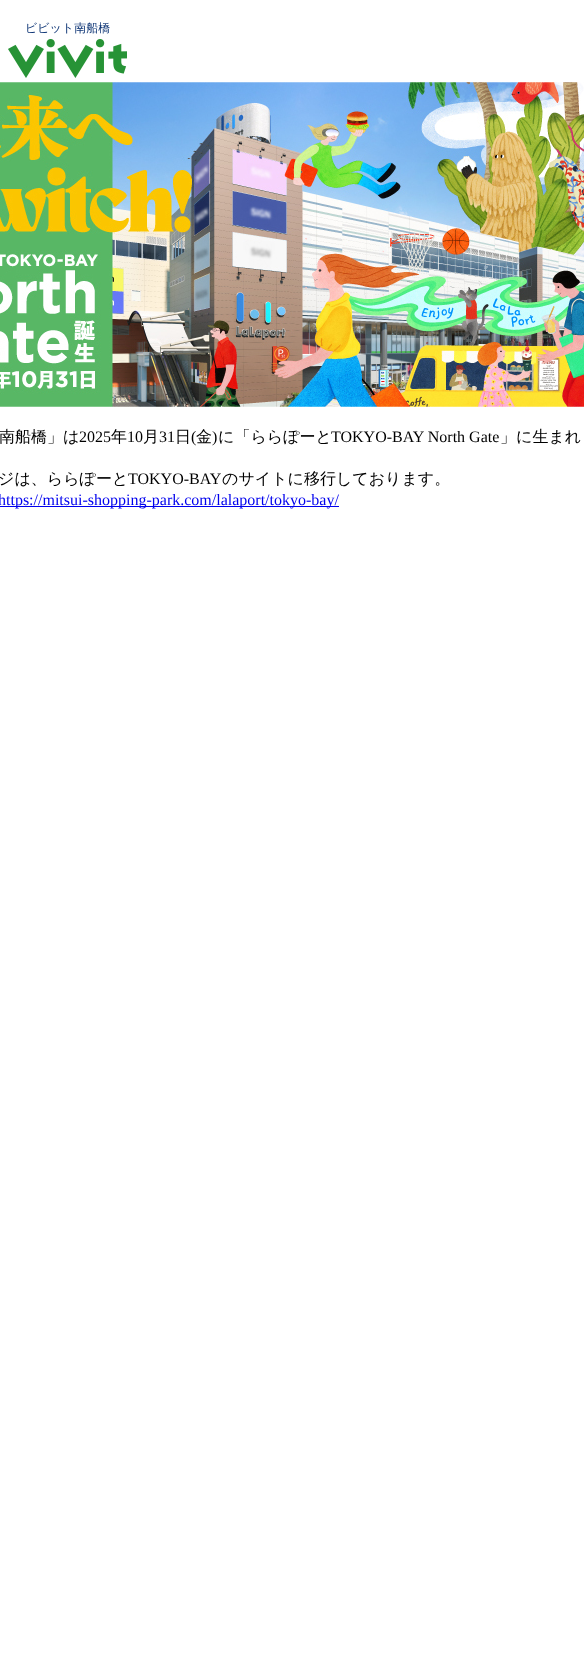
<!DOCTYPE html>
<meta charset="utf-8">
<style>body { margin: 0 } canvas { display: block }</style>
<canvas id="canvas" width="584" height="1675"></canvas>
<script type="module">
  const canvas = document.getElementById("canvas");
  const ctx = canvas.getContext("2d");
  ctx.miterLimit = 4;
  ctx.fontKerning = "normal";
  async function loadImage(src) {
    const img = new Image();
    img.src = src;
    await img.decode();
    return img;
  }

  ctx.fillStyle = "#ffffff";
  ctx.fillRect(0, 0, 584, 1675);
  ctx.font = "500 12px WenQuanYi Zen Hei";
  ctx.fillStyle = "#0f3676";
  ctx.fillText("ビビット南船橋", 25, 32);
  ctx.drawImage(await loadImage("img1.png"), 8, 39, 119, 39);
  ctx.drawImage(await loadImage("img2.png"), 0, 82, 584, 325);
  ctx.font = "500 16px WenQuanYi Zen Hei";
  ctx.fillStyle = "#000000";
  ctx.fillText("南船橋」は", -1, 442);
  ctx.font = "16px Liberation Serif";
  ctx.fillText("2025", 79, 442);
  ctx.font = "500 16px WenQuanYi Zen Hei";
  ctx.fillText("年", 111, 442);
  ctx.font = "16px Liberation Serif";
  ctx.fillText("10", 127, 442);
  ctx.font = "500 16px WenQuanYi Zen Hei";
  ctx.fillText("月", 143, 442);
  ctx.font = "16px Liberation Serif";
  ctx.fillText("31", 159, 442);
  ctx.font = "500 16px WenQuanYi Zen Hei";
  ctx.fillText("日", 175, 442);
  ctx.font = "16px Liberation Serif";
  ctx.fillText("(", 191, 442);
  ctx.font = "500 16px WenQuanYi Zen Hei";
  ctx.fillText("金", 196, 442);
  ctx.font = "16px Liberation Serif";
  ctx.fillText(")", 212, 442);
  ctx.font = "500 16px WenQuanYi Zen Hei";
  ctx.fillText("に「ららぽーと", 218, 442);
  ctx.font = "16px Liberation Serif";
  ctx.fillText("TOKYO-BAY North Gate", 331, 442);
  ctx.font = "500 16px WenQuanYi Zen Hei";
  ctx.fillText("」に生まれ", 500, 442);
  ctx.fillText("ジは、ららぽーと", -2, 484);
  ctx.font = "16px Liberation Serif";
  ctx.fillText("TOKYO-BAY", 128, 484);
  ctx.font = "500 16px WenQuanYi Zen Hei";
  ctx.fillText("のサイトに移行しております。", 222, 484);
  ctx.fillStyle = "#0000ee";
  ctx.fillRect(0, 506, 339, 1);
  ctx.font = "16px Liberation Serif";
  ctx.fillText("https://mitsui-shopping-park.com/lalaport/tokyo-bay/", -2, 505);
</script>
